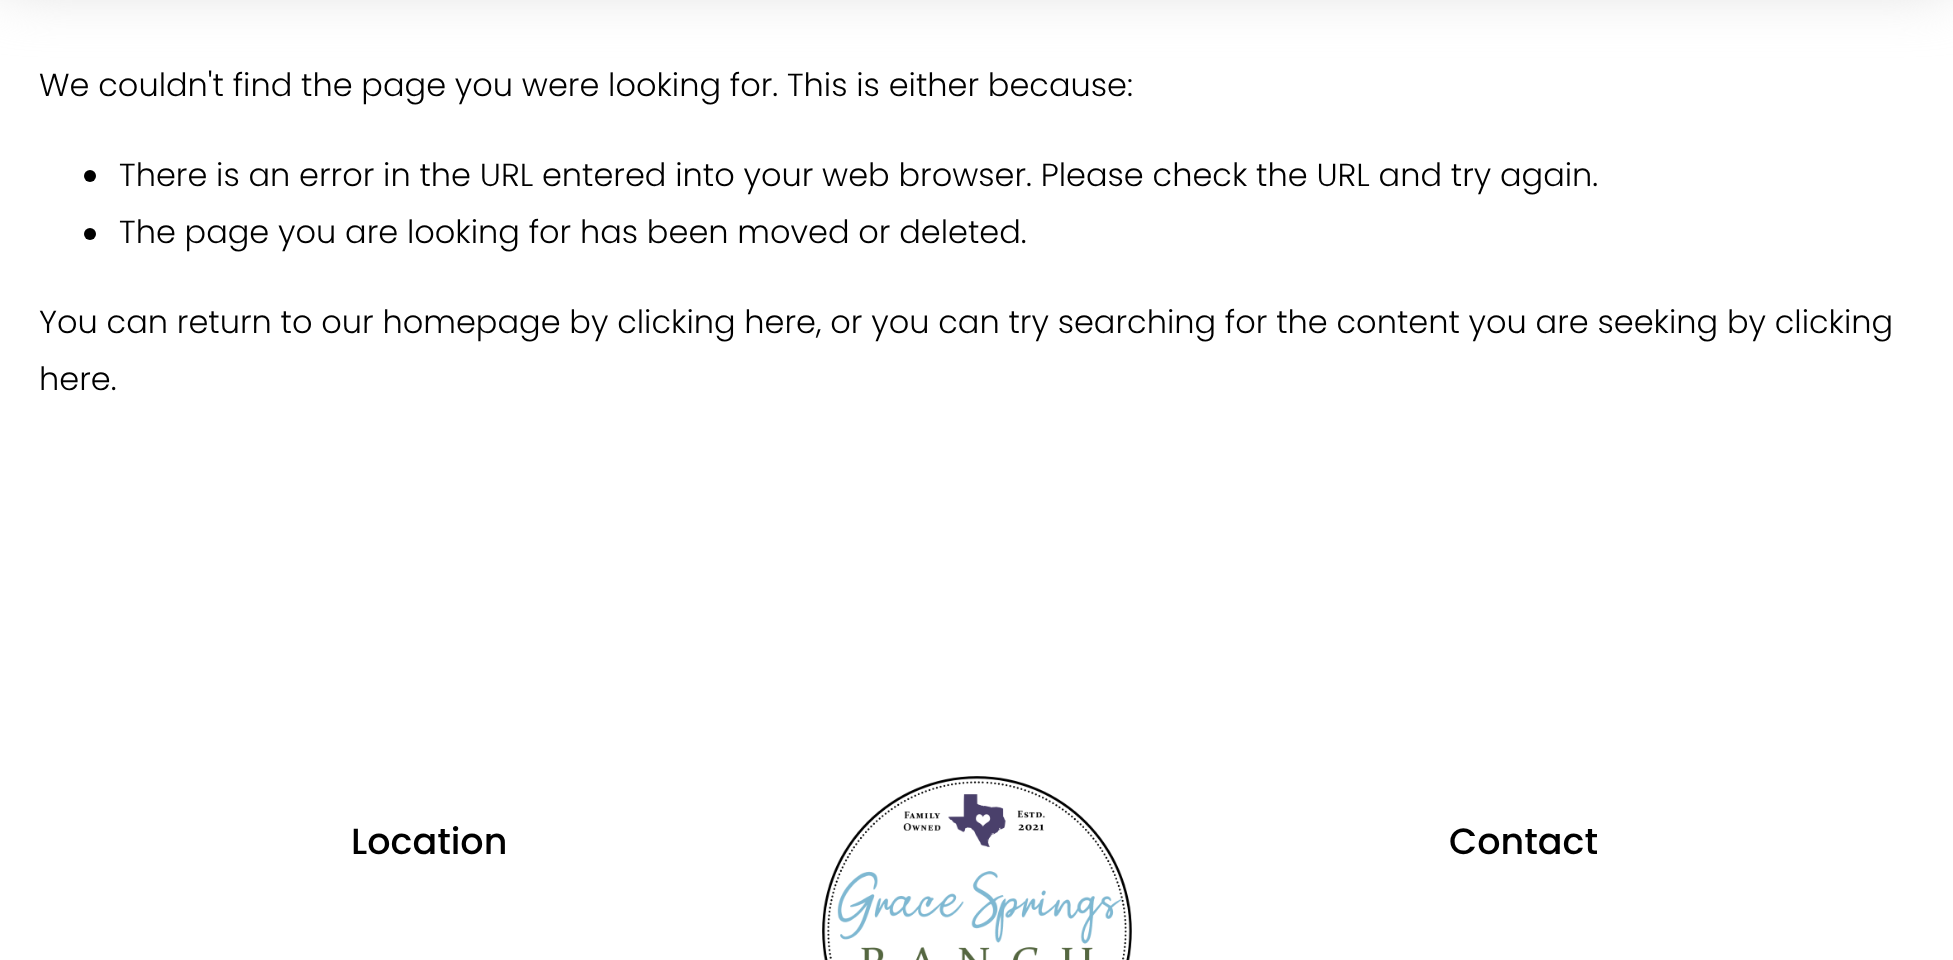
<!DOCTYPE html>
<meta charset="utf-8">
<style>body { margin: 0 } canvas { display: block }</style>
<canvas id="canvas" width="1953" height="960"></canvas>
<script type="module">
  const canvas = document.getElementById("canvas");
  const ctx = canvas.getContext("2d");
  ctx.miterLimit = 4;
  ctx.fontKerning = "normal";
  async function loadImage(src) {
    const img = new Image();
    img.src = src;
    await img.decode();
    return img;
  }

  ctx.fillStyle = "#ffffff";
  ctx.fillRect(0, 0, 1953, 960);
  ctx.fillStyle = "#d9d9d9";
  ctx.filter = "blur(30px)";
  ctx.beginPath();
  ctx.rect(0, -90, 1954, 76);
  ctx.fill();
  ctx.filter = "none";
  ctx.font = "300 32px Poppins";
  ctx.fillStyle = "#000000";
  ctx.fillText("We couldn't find the page you were looking for. This is either because:", 39, 96);
  ctx.beginPath();
  ctx.arc(90, 176, 6, 0, Math.PI * 2);
  ctx.fill();
  ctx.fillText("There is an error in the URL entered into your web browser. Please check the URL and try again.", 119, 186);
  ctx.beginPath();
  ctx.arc(90, 234, 6, 0, Math.PI * 2);
  ctx.fill();
  ctx.fillText("The page you are looking for has been moved or deleted.", 119, 243);
  ctx.fillText("You can return to our homepage by clicking here, or you can try searching for the content you are seeking by clicking", 39, 333);
  ctx.fillText("here.", 39, 390);
  ctx.font = "500 36.5px Poppins";
  ctx.fillText("Location", 351, 854);
  ctx.drawImage(await loadImage("img1.png"), 822, 776, 310, 184);
  ctx.fillText("Contact", 1449, 854);
</script>
